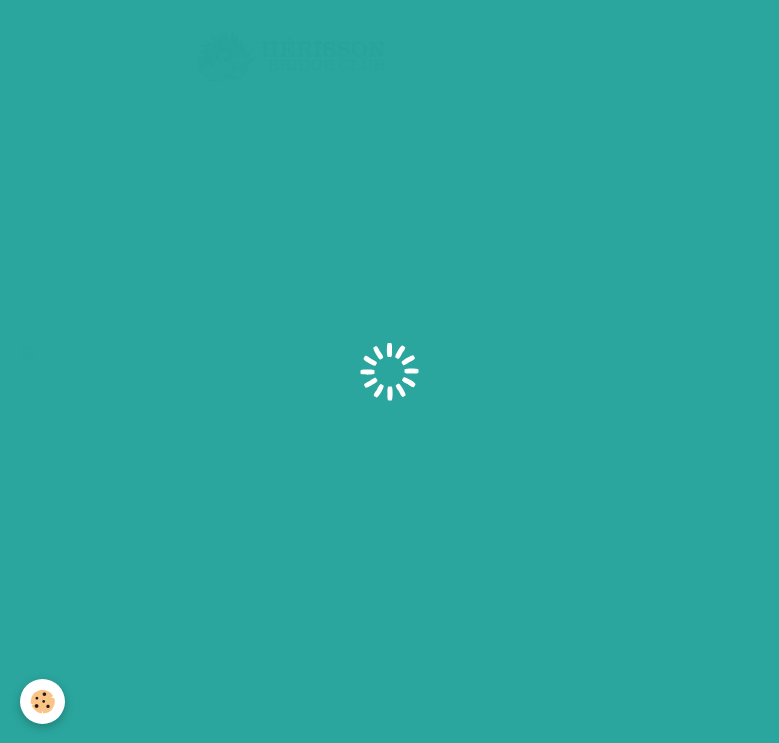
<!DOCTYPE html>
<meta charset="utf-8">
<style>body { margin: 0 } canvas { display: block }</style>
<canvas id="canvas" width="779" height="743"></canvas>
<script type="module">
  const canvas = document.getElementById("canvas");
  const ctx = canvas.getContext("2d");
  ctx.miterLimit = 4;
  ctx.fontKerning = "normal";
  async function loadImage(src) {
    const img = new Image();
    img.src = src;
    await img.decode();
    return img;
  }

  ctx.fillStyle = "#2aa69e";
  ctx.fillRect(0, 0, 779, 743);
  ctx.drawImage(await loadImage("img1.png"), 196, 30, 191, 52);
  ctx.drawImage(await loadImage("img2.png"), 11, 120, 19, 16);
  ctx.drawImage(await loadImage("img3.png"), 748, 119, 20, 20);
  ctx.drawImage(await loadImage("img4.png"), 21, 346, 15, 16);
  ctx.fillStyle = "#ffffff";
  ctx.beginPath();
  ctx.moveTo(363.5, 358.5);
  ctx.lineTo(365, 356);
  ctx.bezierCurveTo(366.5, 355, 370.5, 358.5, 371.5, 359);
  ctx.bezierCurveTo(372.5, 359.5, 377, 361.5, 377, 363);
  ctx.lineTo(375.5, 365.5);
  ctx.bezierCurveTo(374.5, 367, 362.5, 360, 363.5, 358.5);
  ctx.closePath();
  ctx.fill();
  ctx.beginPath();
  ctx.moveTo(373.5, 347.5);
  ctx.lineTo(376, 346);
  ctx.bezierCurveTo(377.5, 346, 379.5, 350.5, 380, 351.5);
  ctx.bezierCurveTo(380.5, 352.5, 384, 356.5, 383, 358);
  ctx.lineTo(380.5, 359.5);
  ctx.bezierCurveTo(379, 360, 372, 348, 373.5, 347.5);
  ctx.closePath();
  ctx.fill();
  ctx.beginPath();
  ctx.moveTo(388, 343);
  ctx.lineTo(391, 343);
  ctx.bezierCurveTo(392.5, 344, 392, 349, 392, 350);
  ctx.bezierCurveTo(392, 351, 392.5, 356, 391, 357);
  ctx.lineTo(388, 357);
  ctx.bezierCurveTo(386.5, 357, 386.5, 343, 388, 343);
  ctx.closePath();
  ctx.moveTo(402.5, 345.5);
  ctx.lineTo(405, 347);
  ctx.bezierCurveTo(406, 348.5, 402.5, 352.5, 402, 353.5);
  ctx.bezierCurveTo(401.5, 354.5, 399.5, 359, 398, 359);
  ctx.lineTo(395.5, 357.5);
  ctx.bezierCurveTo(394, 356.5, 401, 344.5, 402.5, 345.5);
  ctx.closePath();
  ctx.fill();
  ctx.beginPath();
  ctx.moveTo(413.5, 355.5);
  ctx.lineTo(415, 358);
  ctx.bezierCurveTo(415, 359.5, 410.5, 361.5, 409.5, 362);
  ctx.bezierCurveTo(408.5, 362.5, 404.5, 366, 403, 365);
  ctx.lineTo(401.5, 362.5);
  ctx.bezierCurveTo(401, 361, 413, 354, 413.5, 355.5);
  ctx.closePath();
  ctx.fill();
  ctx.fillStyle = "#fdfefe";
  ctx.beginPath();
  ctx.moveTo(360.5, 373.5);
  ctx.lineTo(360.5, 370.5);
  ctx.bezierCurveTo(361.5, 369, 366.5, 369.5, 367.5, 369.5);
  ctx.bezierCurveTo(368.5, 369.5, 373.5, 369, 374.5, 370.5);
  ctx.lineTo(374.5, 373.5);
  ctx.bezierCurveTo(374.5, 375, 360.5, 375, 360.5, 373.5);
  ctx.closePath();
  ctx.fill();
  ctx.beginPath();
  ctx.moveTo(418.5, 369.5);
  ctx.lineTo(418.5, 372.5);
  ctx.bezierCurveTo(417.5, 374, 412.5, 373.5, 411.5, 373.5);
  ctx.bezierCurveTo(410.5, 373.5, 405.5, 374, 404.5, 372.5);
  ctx.lineTo(404.5, 369.5);
  ctx.bezierCurveTo(404.5, 368, 418.5, 368, 418.5, 369.5);
  ctx.closePath();
  ctx.fill();
  ctx.fillStyle = "#ffffff";
  ctx.beginPath();
  ctx.moveTo(415.5, 384.5);
  ctx.lineTo(414, 387);
  ctx.bezierCurveTo(412.5, 388, 408.5, 384.5, 407.5, 384);
  ctx.bezierCurveTo(406.5, 383.5, 402, 381.5, 402, 380);
  ctx.lineTo(403.5, 377.5);
  ctx.bezierCurveTo(404.5, 376, 416.5, 383, 415.5, 384.5);
  ctx.closePath();
  ctx.fill();
  ctx.fillStyle = "#fdfefe";
  ctx.beginPath();
  ctx.moveTo(405.5, 395.5);
  ctx.lineTo(403, 397);
  ctx.bezierCurveTo(401.5, 397, 399.5, 392.5, 399, 391.5);
  ctx.bezierCurveTo(398.5, 390.5, 395, 386.5, 396, 385);
  ctx.lineTo(398.5, 383.5);
  ctx.bezierCurveTo(400, 383, 407, 395, 405.5, 395.5);
  ctx.closePath();
  ctx.moveTo(391.5, 400.5);
  ctx.lineTo(388.5, 400.5);
  ctx.bezierCurveTo(387, 399.5, 387.5, 394.5, 387.5, 393.5);
  ctx.bezierCurveTo(387.5, 392.5, 387, 387.5, 388.5, 386.5);
  ctx.lineTo(391.5, 386.5);
  ctx.bezierCurveTo(393, 386.5, 393, 400.5, 391.5, 400.5);
  ctx.closePath();
  ctx.moveTo(376.5, 397.5);
  ctx.lineTo(374, 396);
  ctx.bezierCurveTo(373, 394.5, 376.5, 390.5, 377, 389.5);
  ctx.bezierCurveTo(377.5, 388.5, 379.5, 384, 381, 384);
  ctx.lineTo(383.5, 385.5);
  ctx.bezierCurveTo(385, 386.5, 378, 398.5, 376.5, 397.5);
  ctx.closePath();
  ctx.fill();
  ctx.fillStyle = "#ffffff";
  ctx.beginPath();
  ctx.moveTo(365.5, 387.5);
  ctx.lineTo(364, 385);
  ctx.bezierCurveTo(364, 383.5, 368.5, 381.5, 369.5, 381);
  ctx.bezierCurveTo(370.5, 380.5, 374.5, 377, 376, 378);
  ctx.lineTo(377.5, 380.5);
  ctx.bezierCurveTo(378, 382, 366, 389, 365.5, 387.5);
  ctx.closePath();
  ctx.fill();
  ctx.fillStyle = "rgba(0, 0, 0, 0.24)";
  ctx.filter = "blur(5px)";
  ctx.beginPath();
  ctx.roundRect(20, 682, 45, 45, 22.5);
  ctx.fill();
  ctx.filter = "none";
  ctx.fillStyle = "#ffffff";
  ctx.beginPath();
  ctx.arc(42.5, 701.5, 22.5, 0, Math.PI * 2);
  ctx.fill();
  ctx.drawImage(await loadImage("img5.png"), 30, 689, 25, 25);
</script>
